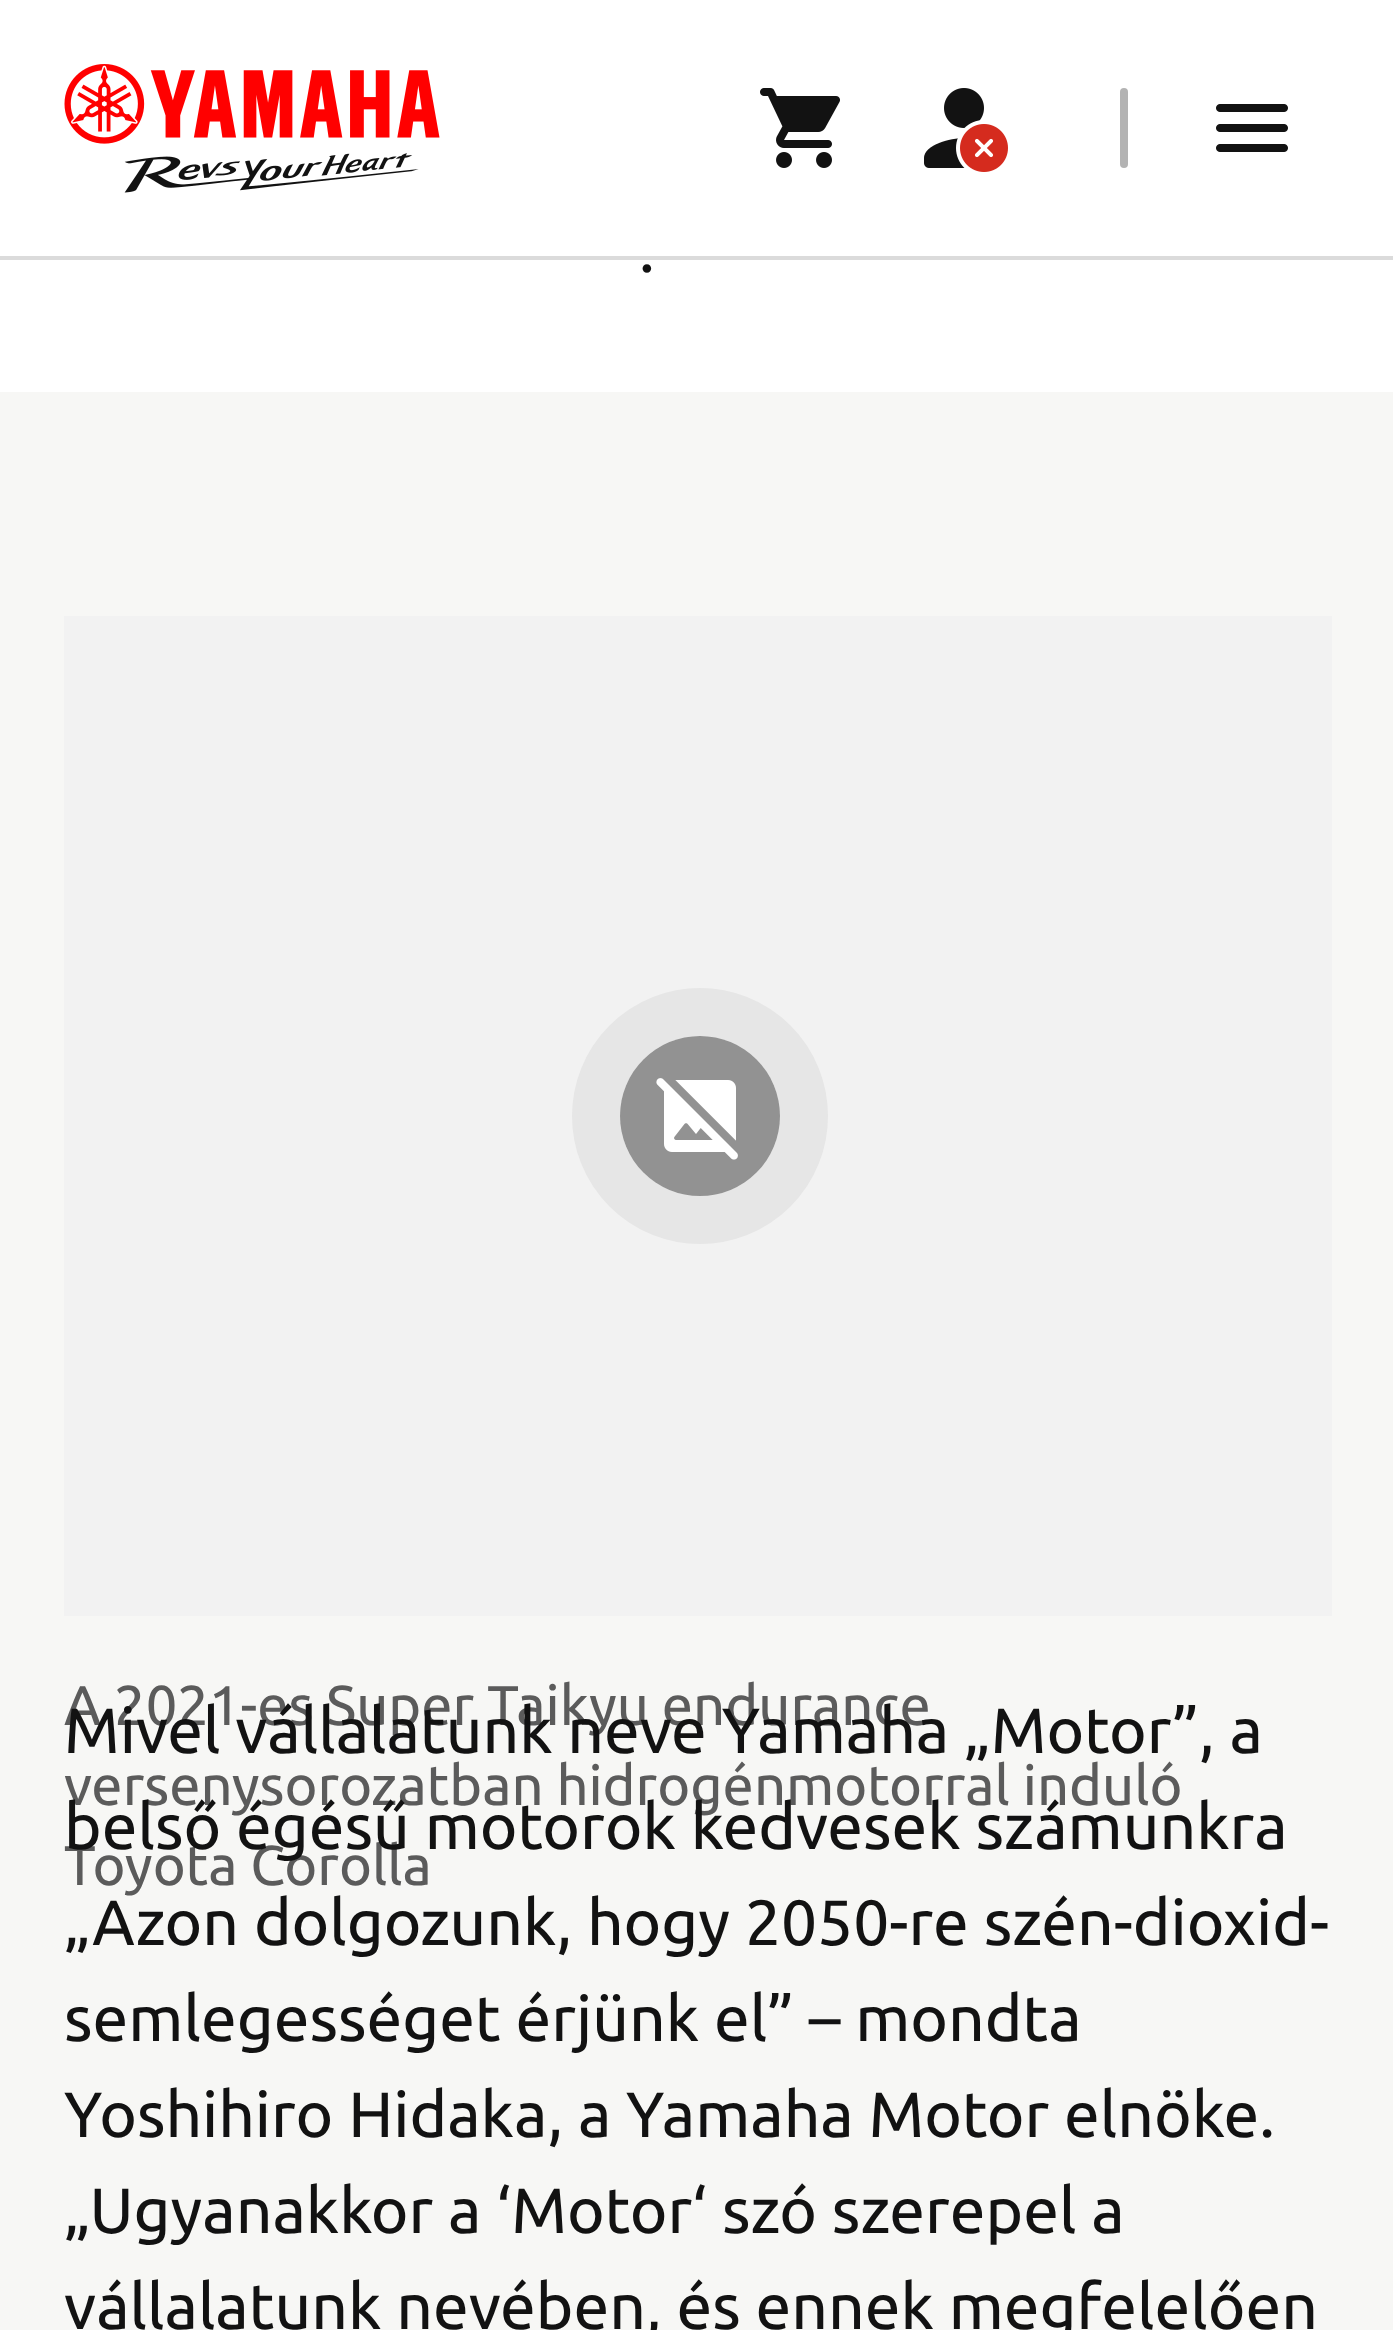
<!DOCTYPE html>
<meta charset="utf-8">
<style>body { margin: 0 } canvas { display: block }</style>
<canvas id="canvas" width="1393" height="2330"></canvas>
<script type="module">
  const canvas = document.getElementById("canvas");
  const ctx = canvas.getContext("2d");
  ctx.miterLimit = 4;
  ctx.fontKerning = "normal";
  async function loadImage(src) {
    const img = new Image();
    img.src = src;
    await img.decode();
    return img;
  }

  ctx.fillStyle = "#f7f7f5";
  ctx.fillRect(0, 0, 1393, 2330);
  ctx.fillStyle = "#ffffff";
  ctx.fillRect(0, 0, 1393, 256);
  ctx.fillStyle = "#dbdbdb";
  ctx.fillRect(0, 256, 1393, 4);
  ctx.drawImage(await loadImage("img1.png"), 64, 64, 376, 129);
  ctx.drawImage(await loadImage("img2.png"), 760, 88, 80, 80);
  ctx.drawImage(await loadImage("img3.png"), 924, 88, 84, 84);
  ctx.fillStyle = "#b3b3b3";
  ctx.beginPath();
  ctx.roundRect(1120, 88, 8, 80, 4);
  ctx.fill();
  ctx.drawImage(await loadImage("img4.png"), 1216, 104, 72, 48);
  ctx.fillStyle = "#ffffff";
  ctx.fillRect(0, 260, 1393, 132);
  ctx.font = "64px Ubuntu";
  ctx.fillStyle = "#121212";
  ctx.fillText(".", 639, 272);
  ctx.fillStyle = "#f2f2f2";
  ctx.fillRect(64, 616, 1268, 1000);
  ctx.beginPath();
  ctx.arc(700, 1116, 104, 0, Math.PI * 2);
  ctx.strokeStyle = "#e6e6e6";
  ctx.lineWidth = 48;
  ctx.stroke();
  ctx.fillStyle = "#929292";
  ctx.beginPath();
  ctx.arc(700, 1116, 80, 0, Math.PI * 2);
  ctx.fill();
  ctx.drawImage(await loadImage("img5.png"), 656, 1078, 82, 82);
  ctx.font = "56px Ubuntu";
  ctx.fillStyle = "#5b5b5b";
  ctx.fillText("A 2021-es Super Taikyu endurance", 64, 1725);
  ctx.fillText("versenysorozatban hidrogénmotorral induló", 64, 1805);
  ctx.fillText("Toyota Corolla", 64, 1885);
  ctx.font = "64px Ubuntu";
  ctx.fillStyle = "#121212";
  ctx.fillText("Mivel vállalatunk neve Yamaha „Motor”, a", 64, 1753);
  ctx.fillText("belső égésű motorok kedvesek számunkra", 64, 1849);
  ctx.fillText("„Azon dolgozunk, hogy 2050-re szén-dioxid-", 64, 1945);
  ctx.fillText("semlegességet érjünk el” – mondta", 64, 2041);
  ctx.fillText("Yoshihiro Hidaka, a Yamaha Motor elnöke.", 64, 2137);
  ctx.fillText("„Ugyanakkor a ‘Motor‘ szó szerepel a", 64, 2233);
  ctx.fillText("vállalatunk nevében, és ennek megfelelően", 64, 2329);
</script>
